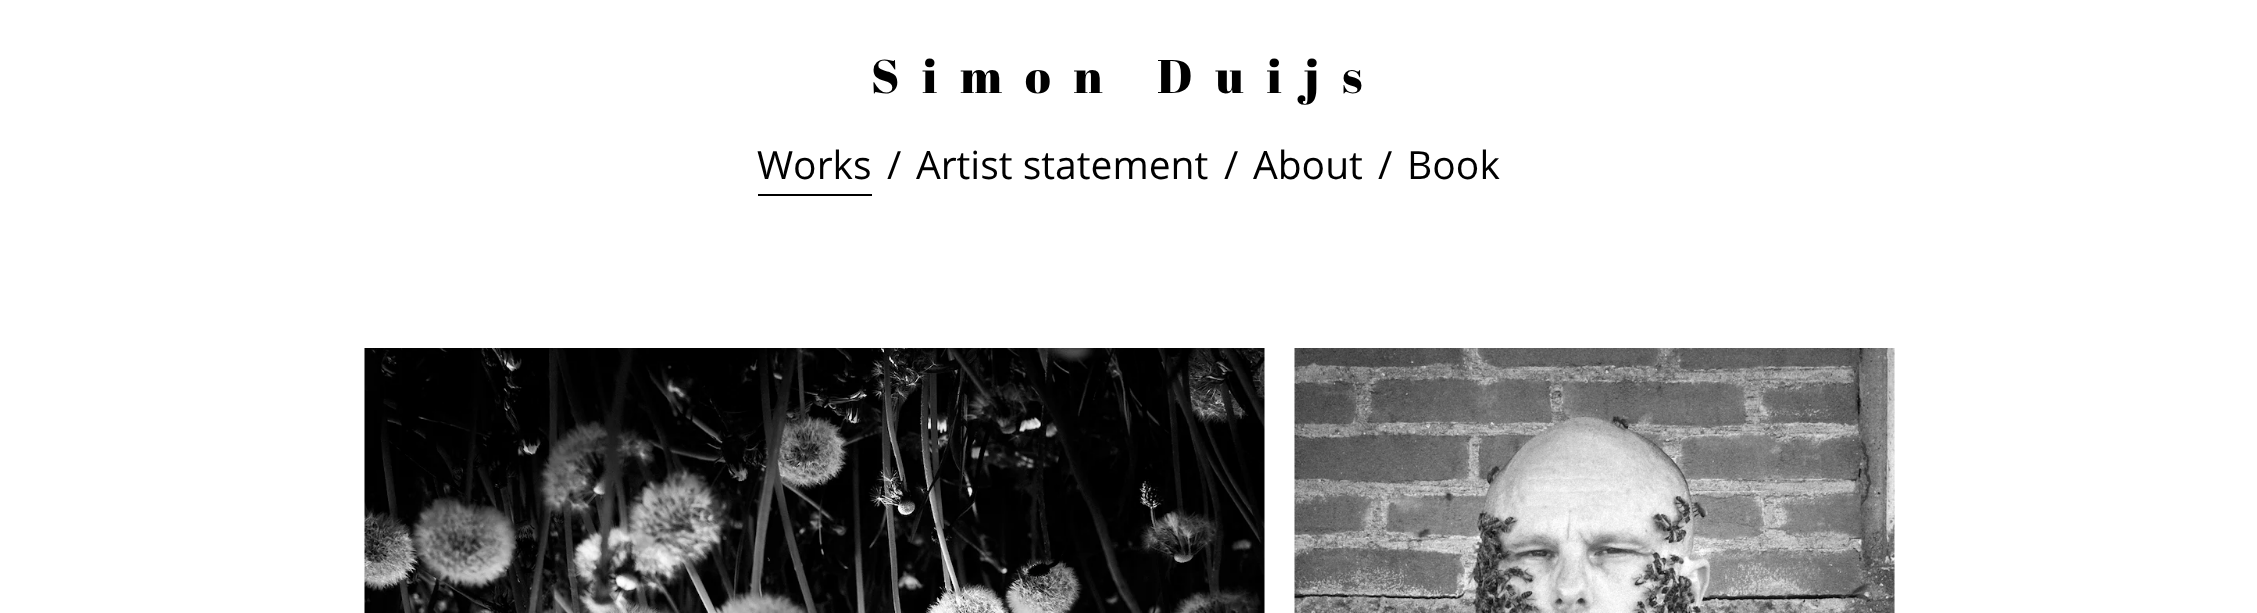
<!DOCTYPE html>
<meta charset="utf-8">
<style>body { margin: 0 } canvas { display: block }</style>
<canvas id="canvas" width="2257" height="613"></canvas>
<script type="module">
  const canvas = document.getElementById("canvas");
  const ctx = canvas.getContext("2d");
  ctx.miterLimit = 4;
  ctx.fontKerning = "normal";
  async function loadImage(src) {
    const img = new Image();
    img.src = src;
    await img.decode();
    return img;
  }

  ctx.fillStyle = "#ffffff";
  ctx.fillRect(0, 0, 2257, 613);
  ctx.letterSpacing = "23px";
  ctx.font = "47.1px Abril Fatface";
  ctx.fillStyle = "#000000";
  ctx.fillText("Simon Duijs", 871, 93);
  ctx.letterSpacing = "0px";
  ctx.font = "39px Open Sans";
  ctx.fillText("Works", 757, 179);
  ctx.fillRect(758, 194, 114, 2);
  ctx.fillText("/", 887, 179);
  ctx.fillText("Artist statement", 916, 179);
  ctx.fillText("/", 1224, 179);
  ctx.fillText("About", 1253, 179);
  ctx.fillText("/", 1378, 179);
  ctx.fillText("Book", 1407, 179);
  ctx.drawImage(await loadImage("img1.png"), 364, 348, 901, 265);
  ctx.drawImage(await loadImage("img2.png"), 1294, 348, 601, 265);
</script>
